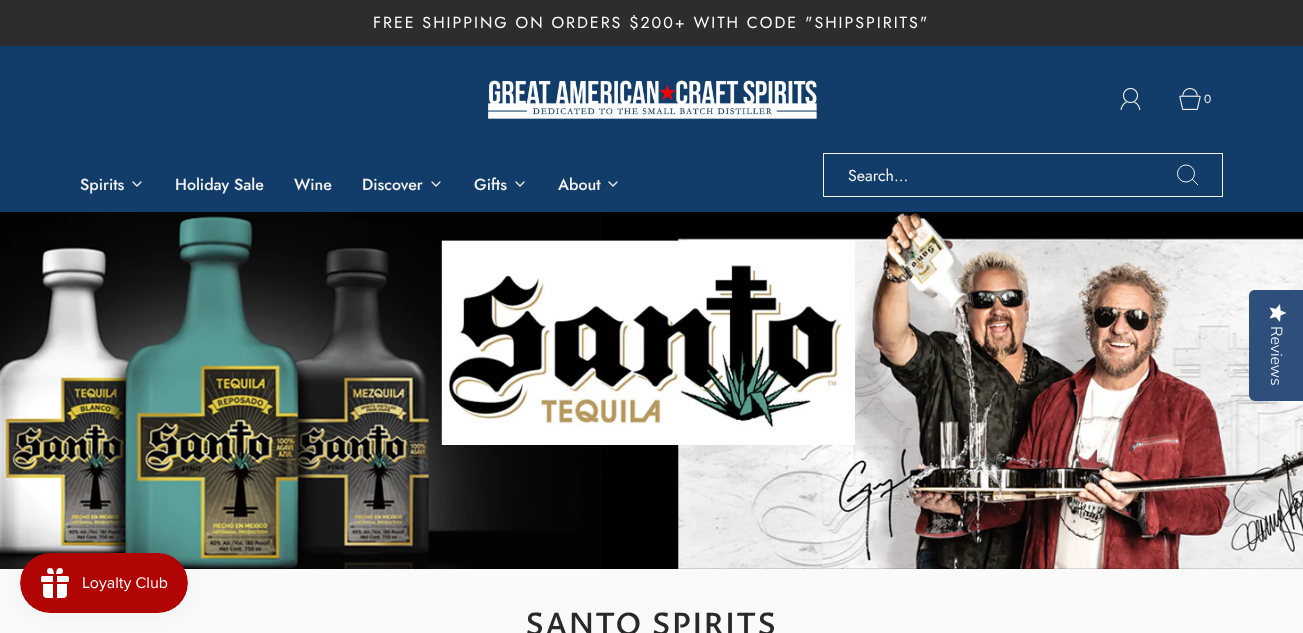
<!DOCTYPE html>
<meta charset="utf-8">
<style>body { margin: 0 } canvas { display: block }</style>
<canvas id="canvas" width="1303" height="633"></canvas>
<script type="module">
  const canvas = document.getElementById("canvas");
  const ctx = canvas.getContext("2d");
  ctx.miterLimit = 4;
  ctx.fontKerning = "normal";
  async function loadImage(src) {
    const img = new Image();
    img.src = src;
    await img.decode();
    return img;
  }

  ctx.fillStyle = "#fafafa";
  ctx.fillRect(0, 0, 1303, 633);
  ctx.fillStyle = "#2d2d2d";
  ctx.fillRect(0, 0, 1303, 46);
  ctx.letterSpacing = "2px";
  ctx.font = "16px Jost";
  ctx.fillStyle = "#ffffff";
  ctx.fillText("FREE SHIPPING ON ORDERS $200+ WITH CODE \"SHIPSPIRITS\"", 373, 28);
  ctx.fillStyle = "#123c69";
  ctx.fillRect(0, 46, 1303, 166);
  ctx.drawImage(await loadImage("img1.png"), 488, 80, 329, 39);
  ctx.drawImage(await loadImage("img2.png"), 1120, 88, 21, 22);
  ctx.drawImage(await loadImage("img3.png"), 1179, 88, 22, 22);
  ctx.letterSpacing = "0px";
  ctx.font = "12px Jost";
  ctx.fillStyle = "#f3f3f3";
  ctx.fillText("0", 1204, 103);
  ctx.strokeStyle = "#f3f3f3";
  ctx.strokeRect(823.5, 153.5, 399, 43);
  ctx.font = "16px Jost";
  ctx.fillText("Search...", 848, 181);
  ctx.beginPath();
  ctx.arc(1186, 173.5, 8.5, 0, Math.PI * 2);
  ctx.stroke();
  ctx.beginPath();
  ctx.moveTo(1192, 179);
  ctx.lineTo(1198, 185);
  ctx.stroke();
  ctx.font = "500 16px Jost";
  ctx.fillText("Spirits", 80, 190);
  ctx.beginPath();
  ctx.moveTo(133, 182);
  ctx.lineTo(137, 186);
  ctx.lineTo(141, 182);
  ctx.lineWidth = 1.3;
  ctx.lineCap = "round";
  ctx.lineJoin = "round";
  ctx.stroke();
  ctx.fillText("Holiday Sale", 175, 190);
  ctx.fillText("Wine", 294, 190);
  ctx.fillText("Discover", 362, 190);
  ctx.beginPath();
  ctx.moveTo(432, 182);
  ctx.lineTo(436, 186);
  ctx.lineTo(440, 182);
  ctx.stroke();
  ctx.fillText("Gifts", 474, 190);
  ctx.beginPath();
  ctx.moveTo(516, 182);
  ctx.lineTo(520, 186);
  ctx.lineTo(524, 182);
  ctx.stroke();
  ctx.fillText("About", 558, 190);
  ctx.beginPath();
  ctx.moveTo(609, 182);
  ctx.lineTo(613, 186);
  ctx.lineTo(617, 182);
  ctx.stroke();
  ctx.drawImage(await loadImage("img4.png"), 0, 212, 1303, 357);
  ctx.letterSpacing = "2px";
  ctx.font = "bold 30px Proza Libre";
  ctx.fillStyle = "#292929";
  ctx.fillText("SANTO SPIRITS", 525, 635);
  ctx.fillStyle = "#2e4f7c";
  ctx.beginPath();
  ctx.moveTo(1303, 290);
  ctx.lineTo(1303, 401);
  ctx.lineTo(1255, 401);
  ctx.bezierCurveTo(1252, 401, 1249, 398, 1249, 395);
  ctx.lineTo(1249, 296);
  ctx.bezierCurveTo(1249, 292, 1252, 290, 1255, 290);
  ctx.closePath();
  ctx.fill();
  ctx.drawImage(await loadImage("img5.png"), 1269, 304, 18, 18);
  ctx.letterSpacing = "0px";
  ctx.font = "300 16px Nunito Sans";
  ctx.fillStyle = "#ffffff";
  ctx.save();
  ctx.translate(1271, 326);
  ctx.rotate(90 * Math.PI / 180);
  ctx.fillText("Reviews", 0, 0);
  ctx.restore();
  ctx.fillStyle = "rgba(0, 0, 0, 0.05)";
  ctx.filter = "blur(12.5px)";
  ctx.beginPath();
  ctx.roundRect(20, 553, 168, 60, 30);
  ctx.fill();
  ctx.filter = "none";
  ctx.drawImage(await loadImage("img6.png"), 20, 553, 168, 60);
</script>
